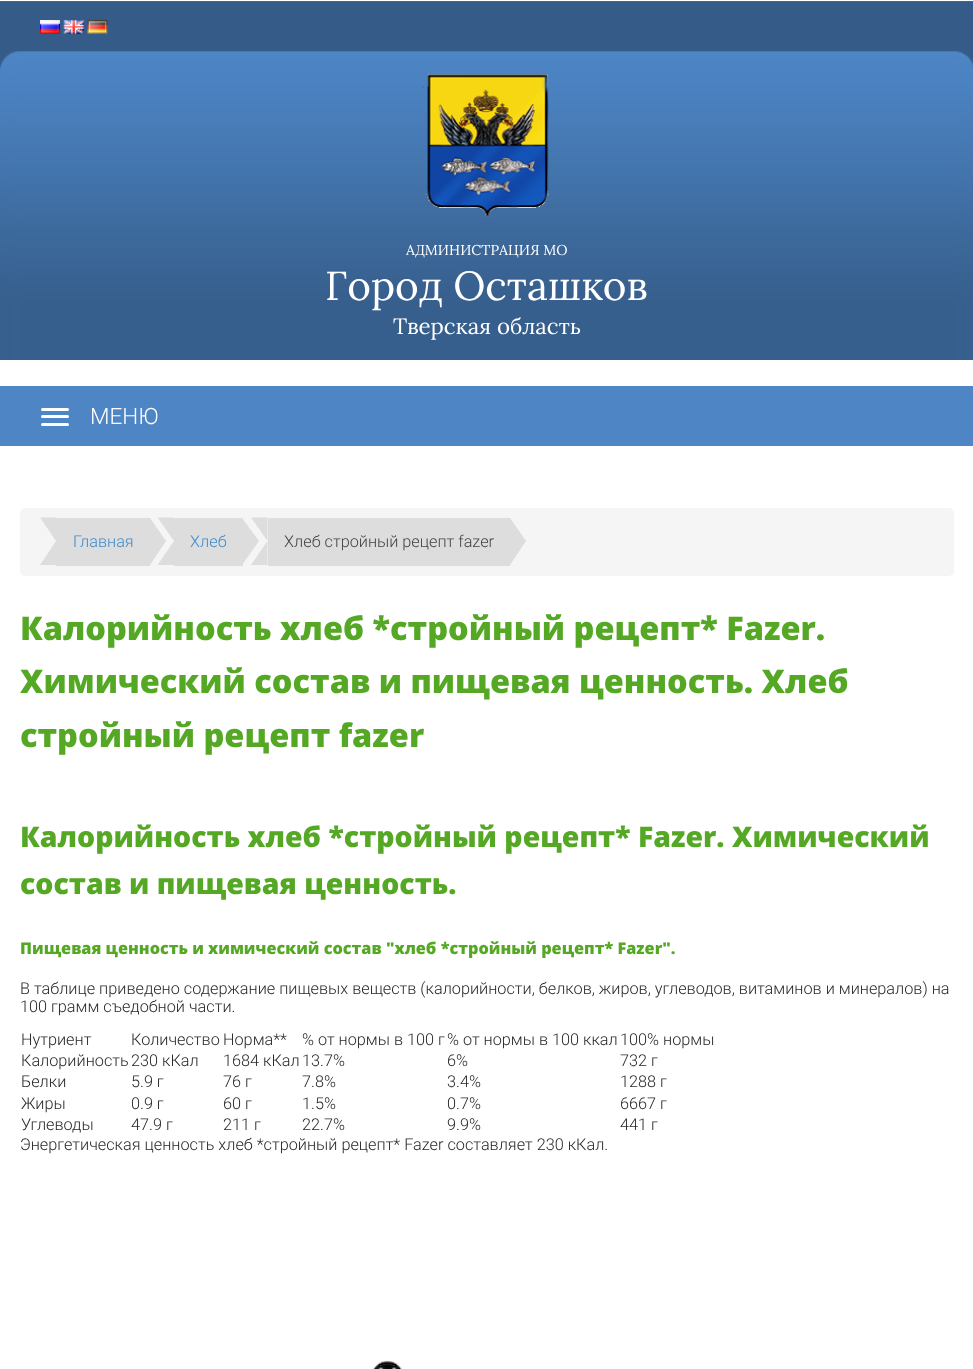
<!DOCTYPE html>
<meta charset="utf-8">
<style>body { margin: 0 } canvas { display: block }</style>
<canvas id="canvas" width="973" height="1369"></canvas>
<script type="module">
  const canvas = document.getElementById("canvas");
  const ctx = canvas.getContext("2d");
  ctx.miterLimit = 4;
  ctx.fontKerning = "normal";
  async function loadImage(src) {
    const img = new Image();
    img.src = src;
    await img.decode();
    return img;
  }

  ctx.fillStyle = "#ffffff";
  ctx.fillRect(0, 0, 973, 1369);
  ctx.fillStyle = "#4d85c5";
  ctx.fillRect(0, 1, 973, 359);
  ctx.drawImage(await loadImage("img1.png"), 0, 1, 19, 359);
  ctx.drawImage(await loadImage("img2.png"), 18, 1, 937, 359);
  ctx.drawImage(await loadImage("img3.png"), 955, 1, 18, 359);
  ctx.drawImage(await loadImage("img4.png"), 40, 20, 20, 14);
  ctx.drawImage(await loadImage("img5.png"), 63, 20, 21, 14);
  ctx.drawImage(await loadImage("img6.png"), 87, 20, 21, 14);
  ctx.drawImage(await loadImage("img7.png"), 422, 74, 129, 144);
  ctx.font = "14.25px Lora";
  ctx.fillStyle = "#ffffff";
  ctx.fillText("АДМИНИСТРАЦИЯ МО", 406, 255);
  ctx.font = "40.5px Lora";
  ctx.fillText("Город Осташков", 325, 300);
  ctx.font = "22.25px Lora";
  ctx.fillText("Тверская область", 393, 334);
  ctx.fillStyle = "#4d85c5";
  ctx.fillRect(0, 386, 973, 60);
  ctx.fillStyle = "#ffffff";
  ctx.beginPath();
  ctx.roundRect(41, 408, 28, 3, 1.5);
  ctx.fill();
  ctx.beginPath();
  ctx.roundRect(41, 415, 28, 3, 1.5);
  ctx.fill();
  ctx.beginPath();
  ctx.roundRect(41, 423, 28, 3, 1.5);
  ctx.fill();
  ctx.font = "300 22.5px Roboto";
  ctx.fillText("МЕНЮ", 90, 424);
  ctx.fillStyle = "#f5f5f5";
  ctx.beginPath();
  ctx.roundRect(20, 508, 934, 68, 5);
  ctx.fill();
  ctx.fillStyle = "#dddddd";
  ctx.fillRect(56, 518, 94, 48);
  ctx.beginPath();
  ctx.moveTo(40, 517.5);
  ctx.lineTo(56, 517.5);
  ctx.lineTo(56, 541);
  ctx.closePath();
  ctx.moveTo(56, 565);
  ctx.lineTo(40, 565);
  ctx.lineTo(56, 541);
  ctx.closePath();
  ctx.fill();
  ctx.font = "300 16.25px Roboto";
  ctx.fillStyle = "#428bca";
  ctx.fillText("Главная", 73, 547);
  ctx.fillStyle = "#dddddd";
  ctx.beginPath();
  ctx.moveTo(150, 565);
  ctx.lineTo(150, 518);
  ctx.lineTo(166, 541);
  ctx.closePath();
  ctx.fill();
  ctx.fillRect(174, 518, 69, 48);
  ctx.beginPath();
  ctx.moveTo(157.5, 517.5);
  ctx.lineTo(174, 517.5);
  ctx.lineTo(174, 541);
  ctx.closePath();
  ctx.moveTo(174, 565);
  ctx.lineTo(157.5, 565);
  ctx.lineTo(174, 541);
  ctx.closePath();
  ctx.fill();
  ctx.fillStyle = "#428bca";
  ctx.fillText("Хлеб", 190, 547);
  ctx.fillStyle = "#dddddd";
  ctx.beginPath();
  ctx.moveTo(242, 565);
  ctx.lineTo(242, 518);
  ctx.lineTo(259, 541);
  ctx.closePath();
  ctx.fill();
  ctx.fillRect(268, 518, 242, 48);
  ctx.beginPath();
  ctx.moveTo(251, 517.5);
  ctx.lineTo(267.5, 517.5);
  ctx.lineTo(267.5, 541);
  ctx.closePath();
  ctx.moveTo(267.5, 565);
  ctx.lineTo(251, 565);
  ctx.lineTo(267.5, 541);
  ctx.closePath();
  ctx.fill();
  ctx.fillStyle = "#444444";
  ctx.fillText("Хлеб стройный рецепт fazer", 284, 547);
  ctx.fillStyle = "#dddddd";
  ctx.beginPath();
  ctx.moveTo(510, 565);
  ctx.lineTo(510, 518);
  ctx.lineTo(526, 541);
  ctx.closePath();
  ctx.fill();
  ctx.font = "800 32.5px Open Sans";
  ctx.fillStyle = "#54a824";
  ctx.fillText("Калорийность хлеб *стройный рецепт* Fazer.", 20, 640);
  ctx.fillText("Химический состав и пищевая ценность. Хлеб", 20, 693);
  ctx.fillText("стройный рецепт fazer", 20, 747);
  ctx.font = "800 28.45px Open Sans";
  ctx.fillText("Калорийность хлеб *стройный рецепт* Fazer. Химический", 20, 847);
  ctx.fillText("состав и пищевая ценность.", 20, 894);
  ctx.font = "800 16.25px Open Sans";
  ctx.fillText("Пищевая ценность и химический состав \"хлеб *стройный рецепт* Fazer\".", 20, 954);
  ctx.font = "300 16.25px Roboto";
  ctx.fillStyle = "#282828";
  ctx.fillText("В таблице приведено содержание пищевых веществ (калорийности, белков, жиров, углеводов, витаминов и минералов) на", 20, 994);
  ctx.fillText("100 грамм съедобной части.", 20, 1012);
  ctx.fillText("Нутриент", 21, 1045);
  ctx.fillText("Количество", 131, 1045);
  ctx.fillText("Норма**", 223, 1045);
  ctx.fillText("% от нормы в 100 г", 302, 1045);
  ctx.fillText("% от нормы в 100 ккал", 447, 1045);
  ctx.fillText("100% нормы", 620, 1045);
  ctx.fillText("Калорийность", 21, 1066);
  ctx.fillText("230 кКал", 131, 1066);
  ctx.fillText("1684 кКал", 223, 1066);
  ctx.fillText("13.7%", 302, 1066);
  ctx.fillText("6%", 447, 1066);
  ctx.fillText("732 г", 620, 1066);
  ctx.fillText("Белки", 21, 1087);
  ctx.fillText("5.9 г", 131, 1087);
  ctx.fillText("76 г", 223, 1087);
  ctx.fillText("7.8%", 302, 1087);
  ctx.fillText("3.4%", 447, 1087);
  ctx.fillText("1288 г", 620, 1087);
  ctx.fillText("Жиры", 21, 1109);
  ctx.fillText("0.9 г", 131, 1109);
  ctx.fillText("60 г", 223, 1109);
  ctx.fillText("1.5%", 302, 1109);
  ctx.fillText("0.7%", 447, 1109);
  ctx.fillText("6667 г", 620, 1109);
  ctx.fillText("Углеводы", 21, 1130);
  ctx.fillText("47.9 г", 131, 1130);
  ctx.fillText("211 г", 223, 1130);
  ctx.fillText("22.7%", 302, 1130);
  ctx.fillText("9.9%", 447, 1130);
  ctx.fillText("441 г", 620, 1130);
  ctx.fillText("Энергетическая ценность хлеб *стройный рецепт* Fazer составляет 230 кКал.", 20, 1150);
  ctx.drawImage(await loadImage("img8.png"), 373, 1360, 29, 9);
</script>
